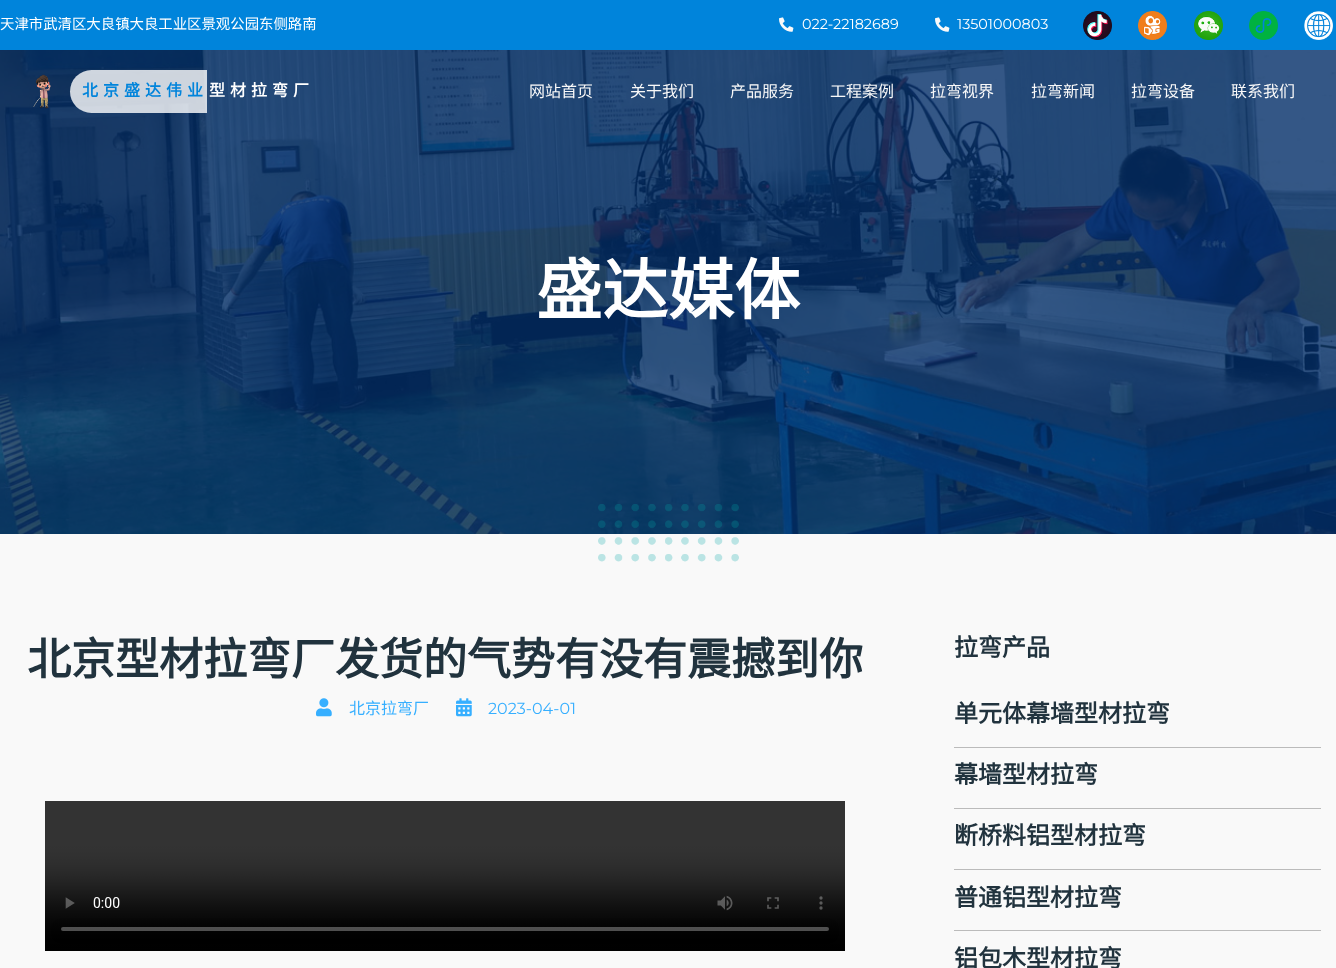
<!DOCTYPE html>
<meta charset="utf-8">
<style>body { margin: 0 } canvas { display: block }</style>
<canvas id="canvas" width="1336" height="968"></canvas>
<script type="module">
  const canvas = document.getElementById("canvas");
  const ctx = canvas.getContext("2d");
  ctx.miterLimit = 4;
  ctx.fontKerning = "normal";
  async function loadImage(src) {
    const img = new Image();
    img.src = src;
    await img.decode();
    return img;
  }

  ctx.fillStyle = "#f9f9f9";
  ctx.fillRect(0, 0, 1336, 968);
  ctx.fillStyle = "#0084db";
  ctx.fillRect(0, 0, 1336, 50);
  ctx.font = "14.4px Noto Sans CJK SC";
  ctx.fillStyle = "#ffffff";
  ctx.fillText("天津市武清区大良镇大良工业区景观公园东侧路南", 0, 29);
  ctx.drawImage(await loadImage("img1.png"), 779, 17, 15, 15);
  ctx.font = "14.4px Montserrat";
  ctx.fillText("022-22182689", 802, 29);
  ctx.drawImage(await loadImage("img1.png"), 935, 17, 15, 15);
  ctx.fillText("13501000803", 957, 29);
  ctx.drawImage(await loadImage("img2.png"), 1083, 11, 29, 29);
  ctx.drawImage(await loadImage("img3.png"), 1138, 11, 29, 29);
  ctx.drawImage(await loadImage("img4.png"), 1194, 11, 29, 29);
  ctx.drawImage(await loadImage("img5.png"), 1249, 11, 29, 29);
  ctx.drawImage(await loadImage("img6.png"), 1304, 11, 29, 29);
  ctx.fillStyle = "#022e68";
  ctx.fillRect(0, 50, 1336, 484);
  ctx.drawImage(await loadImage("img8.png"), 0, 50, 1336, 484);
  ctx.drawImage(await loadImage("img7.png"), 33, 74, 18, 35);
  ctx.fillStyle = "rgba(255, 255, 255, 0.8)";
  ctx.beginPath();
  ctx.roundRect(70, 70, 137, 43, [21.5, 0, 0, 21.5]);
  ctx.fill();
  ctx.letterSpacing = "5px";
  ctx.font = "bold 16px Noto Sans CJK SC";
  ctx.fillStyle = "#0084db";
  ctx.fillText("北京盛达伟业", 82, 96);
  ctx.fillStyle = "#ffffff";
  ctx.fillText("型材拉弯厂", 209, 96);
  ctx.letterSpacing = "0px";
  ctx.font = "16px Noto Sans CJK SC";
  ctx.fillStyle = "#f9f9f9";
  ctx.fillText("网站首页", 529, 97);
  ctx.fillText("关于我们", 630, 97);
  ctx.fillText("产品服务", 730, 97);
  ctx.fillText("工程案例", 830, 97);
  ctx.fillText("拉弯视界", 930, 97);
  ctx.fillText("拉弯新闻", 1031, 97);
  ctx.fillText("拉弯设备", 1131, 97);
  ctx.fillText("联系我们", 1231, 97);
  ctx.font = "bold 66px Noto Sans CJK SC";
  ctx.fillStyle = "#ffffff";
  ctx.fillText("盛达媒体", 536, 314);
  ctx.drawImage(await loadImage("img9.png"), 598, 504, 141, 58);
  ctx.font = "bold 44px Noto Sans CJK SC";
  ctx.fillStyle = "#21333e";
  ctx.fillText("北京型材拉弯厂发货的气势有没有震撼到你", 27, 675);
  ctx.drawImage(await loadImage("img10.png"), 316, 698, 16, 19);
  ctx.font = "16px Noto Sans CJK SC";
  ctx.fillStyle = "#36afff";
  ctx.fillText("北京拉弯厂", 349, 714);
  ctx.drawImage(await loadImage("img11.png"), 456, 698, 16, 19);
  ctx.font = "16px Montserrat";
  ctx.fillText("2023-04-01", 488, 714);
  ctx.drawImage(await loadImage("img12.png"), 45, 801, 800, 150);
  ctx.font = "bold 24px Noto Sans CJK SC";
  ctx.fillStyle = "#21333e";
  ctx.fillText("拉弯产品", 954, 656);
  ctx.fillStyle = "#bbbbbb";
  ctx.fillRect(954, 747, 367, 1);
  ctx.fillStyle = "#21333e";
  ctx.fillText("单元体幕墙型材拉弯", 954, 722);
  ctx.fillStyle = "#bbbbbb";
  ctx.fillRect(954, 808, 367, 1);
  ctx.fillStyle = "#21333e";
  ctx.fillText("幕墙型材拉弯", 954, 783);
  ctx.fillStyle = "#bbbbbb";
  ctx.fillRect(954, 869, 367, 1);
  ctx.fillStyle = "#21333e";
  ctx.fillText("断桥料铝型材拉弯", 954, 844);
  ctx.fillStyle = "#bbbbbb";
  ctx.fillRect(954, 930, 367, 1);
  ctx.fillStyle = "#21333e";
  ctx.fillText("普通铝型材拉弯", 954, 906);
  ctx.fillText("铝包木型材拉弯", 954, 967);
</script>
